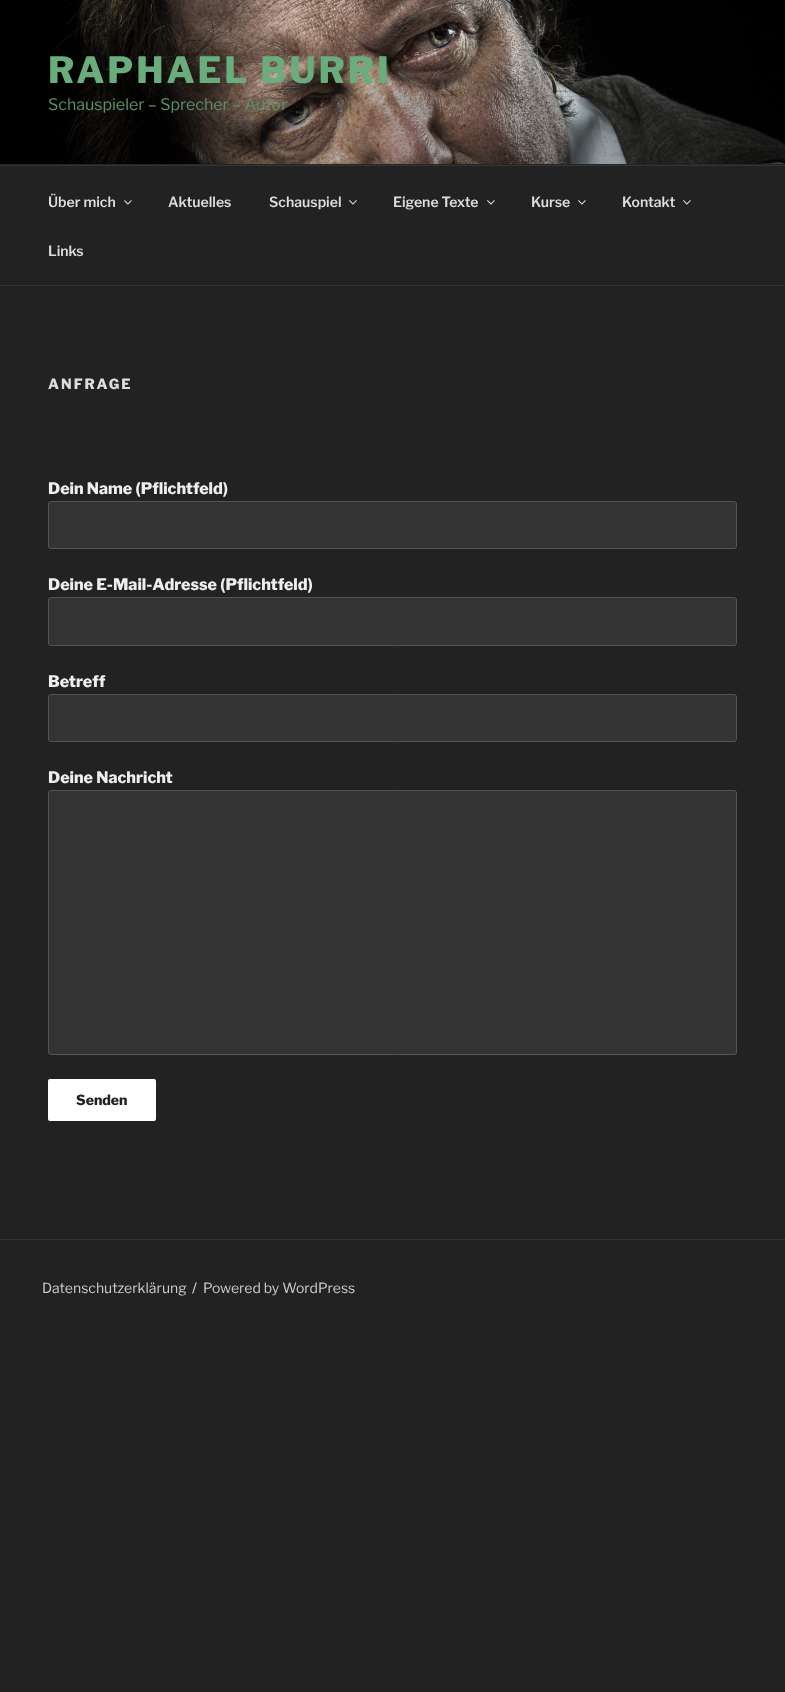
<!DOCTYPE html>
<meta charset="utf-8">
<style>body { margin: 0 } canvas { display: block }</style>
<canvas id="canvas" width="785" height="1692"></canvas>
<script type="module">
  const canvas = document.getElementById("canvas");
  const ctx = canvas.getContext("2d");
  ctx.miterLimit = 4;
  ctx.fontKerning = "normal";
  async function loadImage(src) {
    const img = new Image();
    img.src = src;
    await img.decode();
    return img;
  }

  ctx.fillStyle = "#222222";
  ctx.fillRect(0, 0, 785, 1692);
  ctx.fillStyle = "#262626";
  ctx.fillRect(0, 164, 785, 1);
  ctx.drawImage(await loadImage("img1.png"), 0, 0, 785, 164);
  ctx.letterSpacing = "2.9px";
  ctx.font = "800 36px Libre Franklin";
  ctx.fillStyle = "#69ad7c";
  ctx.fillText("RAPHAEL BURRI", 48, 83);
  ctx.letterSpacing = "0px";
  ctx.font = "16px Libre Franklin";
  ctx.fillStyle = "#5b9168";
  ctx.fillText("Schauspieler – Sprecher – Autor", 48, 110);
  ctx.fillStyle = "#333333";
  ctx.fillRect(0, 165, 785, 1);
  ctx.fillRect(0, 285, 785, 1);
  ctx.font = "600 14px Libre Franklin";
  ctx.fillStyle = "#dddddd";
  ctx.fillText("Über mich", 48, 207);
  ctx.drawImage(await loadImage("img2.png"), 124, 200, 8, 5);
  ctx.fillText("Aktuelles", 168, 207);
  ctx.fillText("Schauspiel", 269, 207);
  ctx.drawImage(await loadImage("img2.png"), 349, 200, 8, 5);
  ctx.fillText("Eigene Texte", 393, 207);
  ctx.drawImage(await loadImage("img2.png"), 487, 200, 8, 5);
  ctx.fillText("Kurse", 531, 207);
  ctx.drawImage(await loadImage("img2.png"), 578, 200, 8, 5);
  ctx.fillText("Kontakt", 622, 207);
  ctx.drawImage(await loadImage("img2.png"), 683, 200, 8, 5);
  ctx.fillText("Links", 48, 256);
  ctx.letterSpacing = "2px";
  ctx.font = "800 14px Libre Franklin";
  ctx.fillText("ANFRAGE", 48, 389);
  ctx.letterSpacing = "0px";
  ctx.font = "800 16px Libre Franklin";
  ctx.fillStyle = "#eeeeee";
  ctx.fillText("Dein Name (Pflichtfeld)", 48, 494);
  ctx.fillStyle = "#333333";
  ctx.beginPath();
  ctx.roundRect(48.5, 501.5, 688, 47, 2.5);
  ctx.fill();
  ctx.strokeStyle = "#555555";
  ctx.stroke();
  ctx.fillStyle = "#eeeeee";
  ctx.fillText("Deine E-Mail-Adresse (Pflichtfeld)", 48, 590);
  ctx.fillStyle = "#333333";
  ctx.beginPath();
  ctx.roundRect(48.5, 597.5, 688, 48, 2.5);
  ctx.fill();
  ctx.stroke();
  ctx.fillStyle = "#eeeeee";
  ctx.fillText("Betreff", 48, 687);
  ctx.fillStyle = "#333333";
  ctx.beginPath();
  ctx.roundRect(48.5, 694.5, 688, 47, 2.5);
  ctx.fill();
  ctx.stroke();
  ctx.fillStyle = "#eeeeee";
  ctx.fillText("Deine Nachricht", 48, 783);
  ctx.fillStyle = "#333333";
  ctx.beginPath();
  ctx.roundRect(48.5, 790.5, 688, 264, 2.5);
  ctx.fill();
  ctx.stroke();
  ctx.fillStyle = "#ffffff";
  ctx.beginPath();
  ctx.roundRect(48, 1079, 108, 42, 2);
  ctx.fill();
  ctx.font = "800 14px Libre Franklin";
  ctx.fillStyle = "#222222";
  ctx.fillText("Senden", 76, 1105);
  ctx.fillStyle = "#333333";
  ctx.fillRect(0, 1239, 785, 1);
  ctx.font = "14px Libre Franklin";
  ctx.fillStyle = "#cccccc";
  ctx.fillText("Datenschutzerklärung", 42, 1293);
  ctx.fillStyle = "#eeeeee";
  ctx.fillText("/", 192, 1293);
  ctx.fillStyle = "#cccccc";
  ctx.fillText("Powered by WordPress", 203, 1293);
</script>
